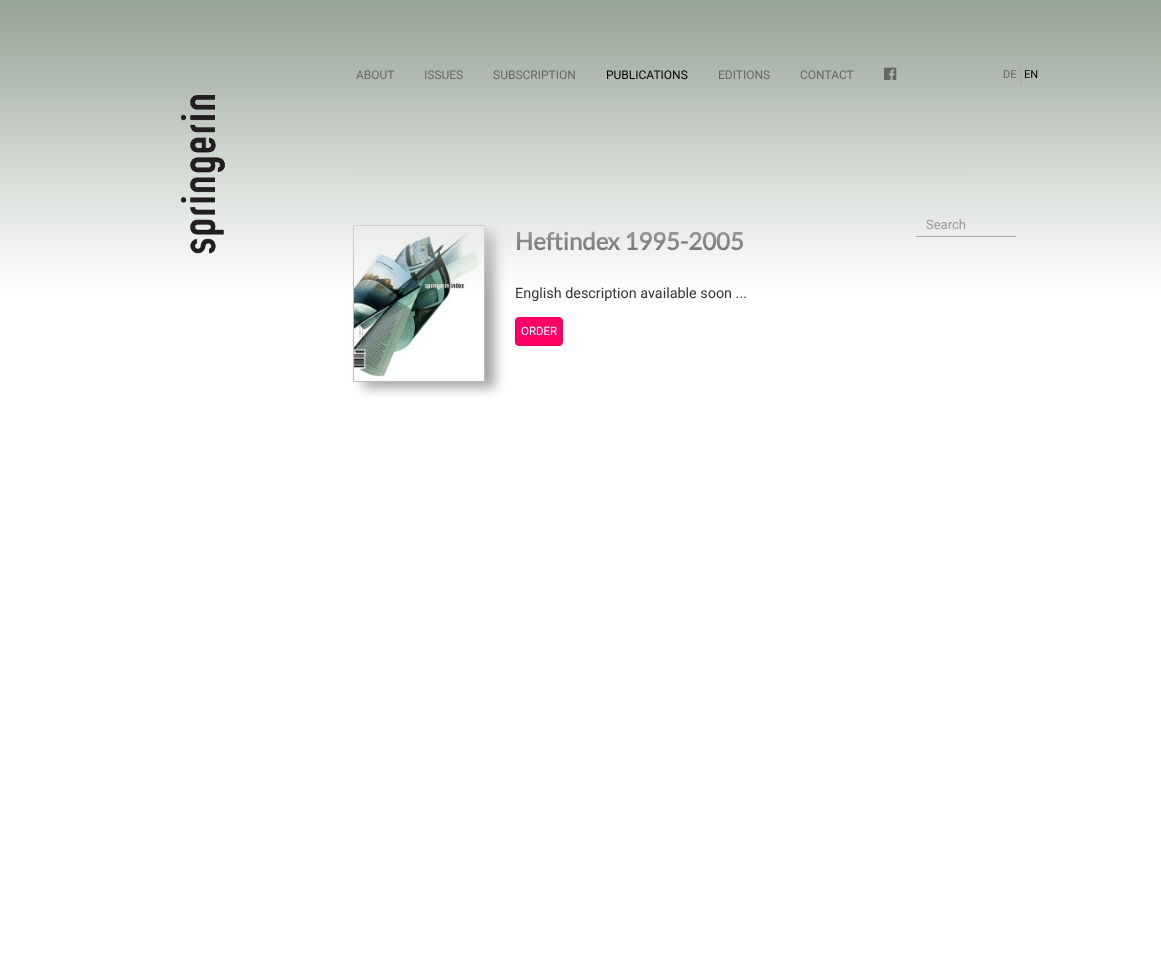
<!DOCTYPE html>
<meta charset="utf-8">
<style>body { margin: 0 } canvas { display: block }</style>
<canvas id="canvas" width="1161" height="974"></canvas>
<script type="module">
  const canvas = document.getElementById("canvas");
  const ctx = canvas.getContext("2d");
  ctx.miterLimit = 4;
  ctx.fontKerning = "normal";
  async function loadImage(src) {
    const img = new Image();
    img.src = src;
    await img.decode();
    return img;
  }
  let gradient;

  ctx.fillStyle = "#ffffff";
  ctx.fillRect(0, 0, 1161, 974);
  ctx.fillStyle = "#dddddd";
  ctx.fillRect(353, 174, 617, 1);
  ctx.save();
  ctx.beginPath();
  ctx.moveTo(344, 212);
  ctx.lineTo(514, 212);
  ctx.lineTo(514, 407);
  ctx.lineTo(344, 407);
  ctx.closePath();
  ctx.moveTo(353, 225);
  ctx.lineTo(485, 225);
  ctx.lineTo(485, 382);
  ctx.lineTo(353, 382);
  ctx.closePath();
  ctx.clip("evenodd");
  ctx.fillStyle = "rgba(0, 0, 0, 0.35)";
  ctx.filter = "blur(6px)";
  ctx.beginPath();
  ctx.rect(363, 231, 132, 157);
  ctx.fill();
  ctx.filter = "none";
  ctx.restore();
  ctx.strokeStyle = "#bbbbbb";
  ctx.strokeRect(353.5, 225.5, 131, 156);
  ctx.drawImage(await loadImage("img3.png"), 354, 232, 125, 149);
  ctx.font = "bold 24px Lato";
  ctx.fillStyle = "#333333";
  ctx.fillText("Heftindex 1995-2005", 515, 250);
  ctx.font = "14.4px Roboto";
  ctx.fillText("English description available soon ...", 515, 298);
  gradient = ctx.createLinearGradient(581, 0, 581, 294);
  gradient.addColorStop(0, "#95a395");
  gradient.addColorStop(0.33, "#b8c1b8");
  gradient.addColorStop(0.67, "rgba(219, 224, 219, 0.9)");
  gradient.addColorStop(1, "rgba(219, 224, 219, 0)");
  ctx.fillStyle = gradient;
  ctx.fillRect(0, 0, 1161, 292);
  ctx.drawImage(await loadImage("img1.png"), 181, 95, 45, 159);
  ctx.font = "12px Roboto";
  ctx.fillStyle = "#666666";
  ctx.fillText("ABOUT", 356, 79);
  ctx.fillText("ISSUES", 424, 79);
  ctx.fillText("SUBSCRIPTION", 493, 79);
  ctx.fillStyle = "#000000";
  ctx.fillText("PUBLICATIONS", 606, 79);
  ctx.fillStyle = "#666666";
  ctx.fillText("EDITIONS", 718, 79);
  ctx.fillText("CONTACT", 800, 79);
  ctx.drawImage(await loadImage("img2.png"), 884, 67, 13, 13);
  ctx.font = "11px Roboto";
  ctx.fillText("DE", 1003, 78);
  ctx.fillStyle = "#aaaaaa";
  ctx.fillRect(1020, 64, 1, 22);
  ctx.fillStyle = "#000000";
  ctx.fillText("EN", 1024, 78);
  ctx.fillStyle = "#aaaaaa";
  ctx.fillRect(916, 236, 100, 1);
  ctx.font = "13px Roboto";
  ctx.fillStyle = "#999999";
  ctx.fillText("Search", 926, 229);
  ctx.fillStyle = "#ff0066";
  ctx.beginPath();
  ctx.roundRect(515.5, 317.5, 47, 28, 3.5);
  ctx.fill();
  ctx.strokeStyle = "#e6005c";
  ctx.stroke();
  ctx.font = "11.5px Roboto";
  ctx.fillStyle = "#ffffff";
  ctx.fillText("ORDER", 521, 335);
</script>
